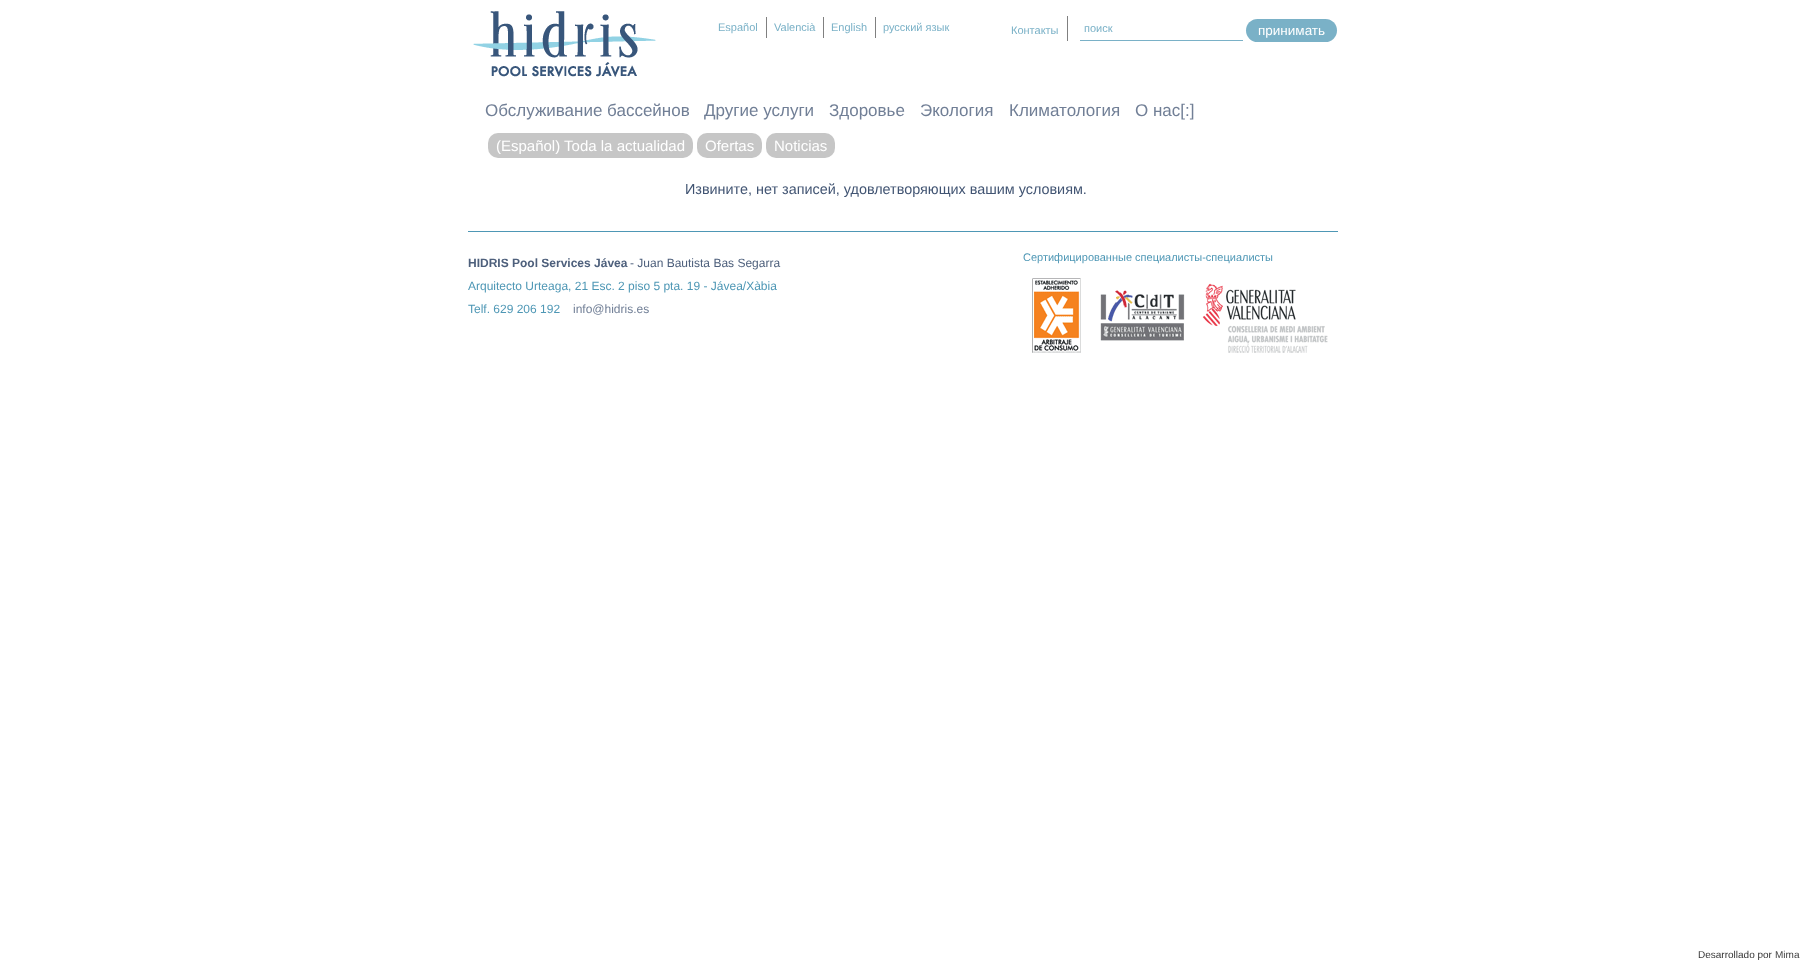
<!DOCTYPE html>
<meta charset="utf-8">
<style>body { margin: 0 } canvas { display: block }</style>
<canvas id="canvas" width="1805" height="972"></canvas>
<script type="module">
  const canvas = document.getElementById("canvas");
  const ctx = canvas.getContext("2d");
  ctx.miterLimit = 4;
  ctx.fontKerning = "normal";
  async function loadImage(src) {
    const img = new Image();
    img.src = src;
    await img.decode();
    return img;
  }

  ctx.fillStyle = "#ffffff";
  ctx.fillRect(0, 0, 1805, 972);
  ctx.drawImage(await loadImage("img1.png"), 473, 11, 183, 66);
  ctx.font = "11px Liberation Sans";
  ctx.fillStyle = "#7ab1c7";
  ctx.fillText("Español", 718, 31);
  ctx.fillStyle = "#808080";
  ctx.fillRect(766, 17, 1, 21);
  ctx.fillStyle = "#7ab1c7";
  ctx.fillText("Valencià", 774, 31);
  ctx.fillStyle = "#808080";
  ctx.fillRect(823, 17, 1, 21);
  ctx.fillStyle = "#7ab1c7";
  ctx.fillText("English", 831, 31);
  ctx.fillStyle = "#808080";
  ctx.fillRect(875, 17, 1, 21);
  ctx.fillStyle = "#7ab1c7";
  ctx.fillText("русский язык", 883, 31);
  ctx.fillText("Контакты", 1011, 34);
  ctx.fillStyle = "#808080";
  ctx.fillRect(1067, 16, 1, 25);
  ctx.fillStyle = "#7ab1c7";
  ctx.fillRect(1080, 40, 163, 1);
  ctx.fillText("поиск", 1084, 32);
  ctx.beginPath();
  ctx.roundRect(1246, 19, 91, 23, 11.5);
  ctx.fill();
  ctx.font = "13.5px Liberation Sans";
  ctx.fillStyle = "#ffffff";
  ctx.fillText("принимать", 1258, 35);
  ctx.font = "17px Liberation Sans";
  ctx.fillStyle = "#717f96";
  ctx.fillText("Обслуживание бассейнов", 485, 116);
  ctx.fillText("Другие услуги", 704, 116);
  ctx.fillText("Здоровье", 829, 116);
  ctx.fillText("Экология", 920, 116);
  ctx.fillText("Климатология", 1009, 116);
  ctx.fillText("О нас[:]", 1135, 116);
  ctx.fillStyle = "#4e97b5";
  ctx.fillRect(468, 231, 870, 1);
  ctx.fillStyle = "#c6c6c6";
  ctx.beginPath();
  ctx.roundRect(488, 133, 205, 25, 10);
  ctx.fill();
  ctx.font = "15px Liberation Sans";
  ctx.fillStyle = "#ffffff";
  ctx.fillText("(Español) Toda la actualidad", 496, 151);
  ctx.fillStyle = "#c6c6c6";
  ctx.beginPath();
  ctx.roundRect(697, 133, 65, 25, 10);
  ctx.fill();
  ctx.fillStyle = "#ffffff";
  ctx.fillText("Ofertas", 705, 151);
  ctx.fillStyle = "#c6c6c6";
  ctx.beginPath();
  ctx.roundRect(766, 133, 69, 25, 10);
  ctx.fill();
  ctx.fillStyle = "#ffffff";
  ctx.fillText("Noticias", 774, 151);
  ctx.font = "14.4px Liberation Sans";
  ctx.fillStyle = "#425573";
  ctx.fillText("Извините, нет записей, удовлетворяющих вашим условиям.", 685, 194);
  ctx.font = "bold 12px Liberation Sans";
  ctx.fillStyle = "#4e607c";
  ctx.fillText("HIDRIS Pool Services Jávea", 468, 267);
  ctx.font = "12px Liberation Sans";
  ctx.fillText("- Juan Bautista Bas Segarra", 630, 267);
  ctx.fillStyle = "#4e97b5";
  ctx.fillText("Arquitecto Urteaga, 21 Esc. 2 piso 5 pta. 19 - Jávea/Xàbia", 468, 290);
  ctx.fillText("Telf. 629 206 192", 468, 313);
  ctx.fillStyle = "#717f96";
  ctx.fillText("info@hidris.es", 573, 313);
  ctx.font = "11px Liberation Sans";
  ctx.fillStyle = "#4e97b5";
  ctx.fillText("Сертифицированные специалисты-специалисты", 1023, 261);
  ctx.drawImage(await loadImage("img2.png"), 1032, 278, 296, 75);
  ctx.font = "10px Liberation Sans";
  ctx.fillStyle = "#363636";
  ctx.fillText("Desarrollado por", 1698, 958);
  ctx.fillStyle = "#3f3f3f";
  ctx.fillText("Mima", 1775, 958);
</script>
